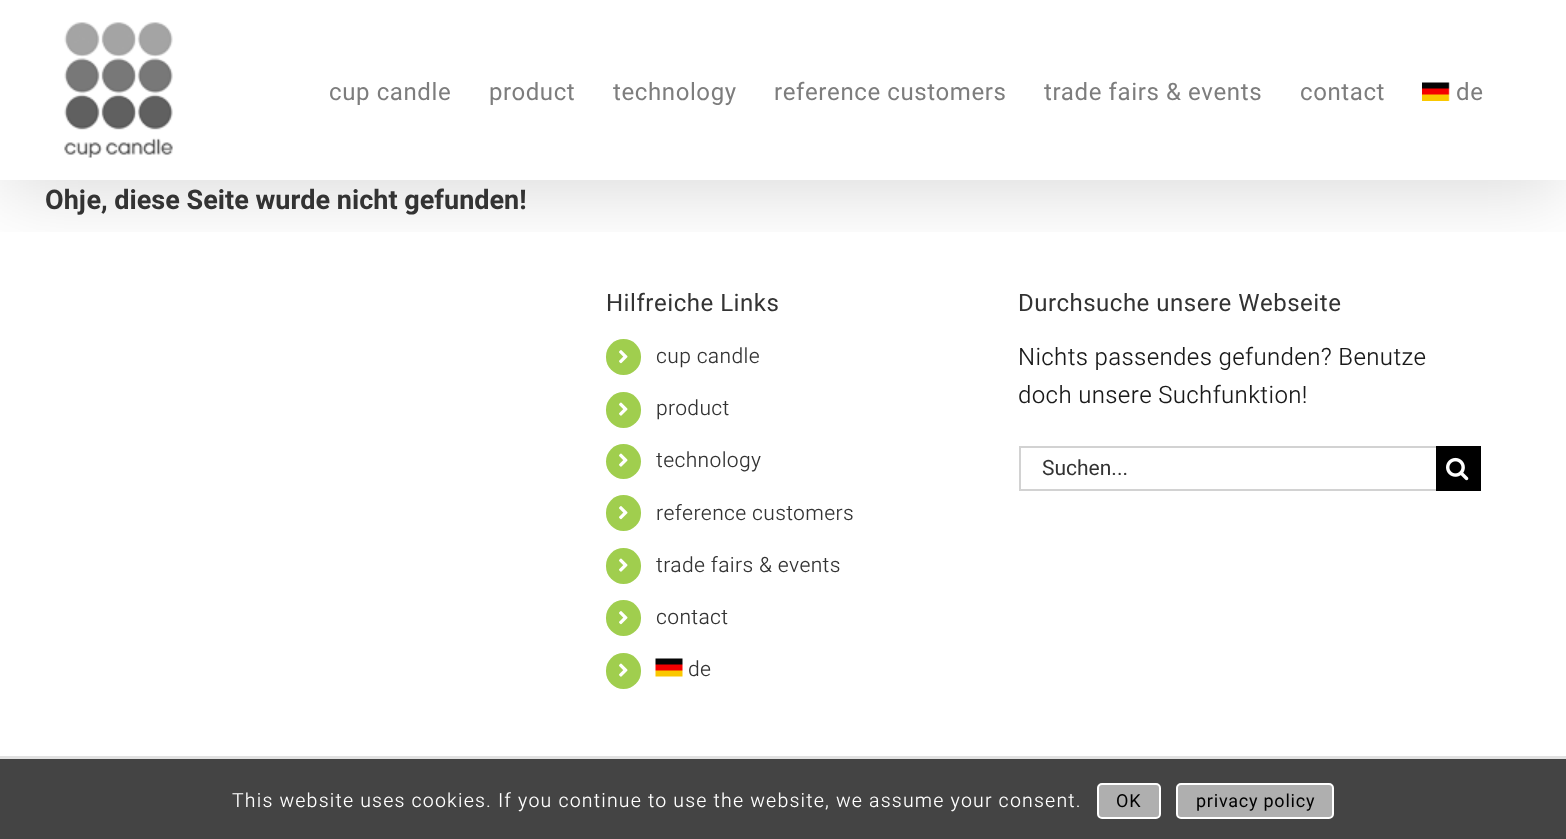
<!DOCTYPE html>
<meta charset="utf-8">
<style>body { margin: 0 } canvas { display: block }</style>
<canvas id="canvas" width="1566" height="839"></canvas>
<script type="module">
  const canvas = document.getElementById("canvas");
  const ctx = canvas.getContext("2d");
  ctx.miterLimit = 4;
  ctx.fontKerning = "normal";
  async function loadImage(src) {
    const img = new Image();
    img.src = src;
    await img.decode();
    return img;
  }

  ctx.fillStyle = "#ffffff";
  ctx.fillRect(0, 0, 1566, 839);
  ctx.save();
  ctx.beginPath();
  ctx.rect(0, 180, 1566, 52);
  ctx.clip();
  ctx.fillStyle = "rgba(0, 0, 0, 0.14)";
  ctx.filter = "blur(37.5px)";
  ctx.beginPath();
  ctx.rect(3, 18, 1560, 174);
  ctx.fill();
  ctx.filter = "none";
  ctx.restore();
  ctx.drawImage(await loadImage("img1.png"), 64, 22, 109, 136);
  ctx.letterSpacing = "0.6px";
  ctx.font = "24px Heebo";
  ctx.fillStyle = "#7d7d7d";
  ctx.fillText("cup candle", 329, 100);
  ctx.fillText("product", 489, 100);
  ctx.fillText("technology", 613, 100);
  ctx.fillText("reference customers", 774, 100);
  ctx.fillText("trade fairs & events", 1044, 100);
  ctx.fillText("contact", 1300, 100);
  ctx.drawImage(await loadImage("img2.png"), 1422, 82, 28, 19);
  ctx.fillText("de", 1456, 100);
  ctx.letterSpacing = "0px";
  ctx.font = "bold 27px Heebo";
  ctx.fillStyle = "#333333";
  ctx.fillText("Ohje, diese Seite wurde nicht gefunden!", 45, 209);
  ctx.letterSpacing = "0.5px";
  ctx.font = "24px Heebo";
  ctx.fillText("Hilfreiche Links", 606, 311);
  ctx.fillStyle = "#a0ce4e";
  ctx.beginPath();
  ctx.roundRect(606, 339, 35, 36, 17.5);
  ctx.fill();
  ctx.drawImage(await loadImage("img3.png"), 619, 350, 9, 14);
  ctx.letterSpacing = "0.35px";
  ctx.font = "300 21px Heebo";
  ctx.fillStyle = "#333333";
  ctx.fillText("cup candle", 656, 363);
  ctx.fillStyle = "#a0ce4e";
  ctx.beginPath();
  ctx.roundRect(606, 392, 35, 36, 17.5);
  ctx.fill();
  ctx.drawImage(await loadImage("img4.png"), 619, 402, 9, 14);
  ctx.fillStyle = "#333333";
  ctx.fillText("product", 656, 415);
  ctx.fillStyle = "#a0ce4e";
  ctx.beginPath();
  ctx.arc(623.5, 461.5, 17.5, 0, Math.PI * 2);
  ctx.fill();
  ctx.drawImage(await loadImage("img4.png"), 619, 453, 9, 14);
  ctx.fillStyle = "#333333";
  ctx.fillText("technology", 656, 467);
  ctx.fillStyle = "#a0ce4e";
  ctx.beginPath();
  ctx.roundRect(606, 495, 35, 36, 17.5);
  ctx.fill();
  ctx.drawImage(await loadImage("img3.png"), 619, 506, 9, 14);
  ctx.fillStyle = "#333333";
  ctx.fillText("reference customers", 656, 520);
  ctx.fillStyle = "#a0ce4e";
  ctx.beginPath();
  ctx.roundRect(606, 548, 35, 36, 17.5);
  ctx.fill();
  ctx.drawImage(await loadImage("img4.png"), 619, 558, 9, 14);
  ctx.fillStyle = "#333333";
  ctx.fillText("trade fairs & events", 656, 572);
  ctx.fillStyle = "#a0ce4e";
  ctx.beginPath();
  ctx.roundRect(606, 600, 35, 36, 17.5);
  ctx.fill();
  ctx.drawImage(await loadImage("img3.png"), 619, 611, 9, 14);
  ctx.fillStyle = "#333333";
  ctx.fillText("contact", 656, 624);
  ctx.fillStyle = "#a0ce4e";
  ctx.beginPath();
  ctx.roundRect(606, 653, 35, 36, 17.5);
  ctx.fill();
  ctx.drawImage(await loadImage("img4.png"), 619, 663, 9, 14);
  ctx.drawImage(await loadImage("img5.png"), 655, 658, 28, 19);
  ctx.fillStyle = "#333333";
  ctx.fillText("de", 688, 676);
  ctx.letterSpacing = "0.5px";
  ctx.font = "24px Heebo";
  ctx.fillText("Durchsuche unsere Webseite", 1018, 311);
  ctx.letterSpacing = "0.35px";
  ctx.font = "300 24px Heebo";
  ctx.fillStyle = "#191919";
  ctx.fillText("Nichts passendes gefunden? Benutze", 1018, 365);
  ctx.fillText("doch unsere Suchfunktion!", 1018, 403);
  ctx.fillStyle = "#d2d2d2";
  ctx.fillRect(1019, 446, 417, 2);
  ctx.fillRect(1019, 489, 417, 2);
  ctx.fillRect(1019, 446, 2, 45);
  ctx.letterSpacing = "0px";
  ctx.font = "21px Heebo";
  ctx.fillStyle = "#333333";
  ctx.fillText("Suchen...", 1042, 475);
  ctx.fillStyle = "#000000";
  ctx.fillRect(1436, 446, 45, 45);
  ctx.drawImage(await loadImage("img6.png"), 1446, 457, 23, 24);
  ctx.fillStyle = "#e1e1e1";
  ctx.fillRect(0, 756, 1566, 3);
  ctx.fillStyle = "#444444";
  ctx.fillRect(0, 759, 1566, 80);
  ctx.letterSpacing = "1.17px";
  ctx.font = "300 19.5px Heebo";
  ctx.fillStyle = "#ffffff";
  ctx.fillText("This website uses cookies. If you continue to use the website, we assume your consent.", 232, 807);
  ctx.fillStyle = "#afafaf";
  ctx.beginPath();
  ctx.roundRect(1098, 784, 62, 34, 4);
  ctx.fill();
  ctx.strokeStyle = "#ffffff";
  ctx.lineWidth = 2;
  ctx.stroke();
  ctx.letterSpacing = "0.75px";
  ctx.font = "18px Heebo";
  ctx.fillStyle = "#000000";
  ctx.fillText("OK", 1116, 807);
  ctx.fillStyle = "#afafaf";
  ctx.beginPath();
  ctx.roundRect(1177, 784, 156, 34, 4);
  ctx.fill();
  ctx.stroke();
  ctx.fillStyle = "#000000";
  ctx.fillText("privacy policy", 1196, 807);
</script>
